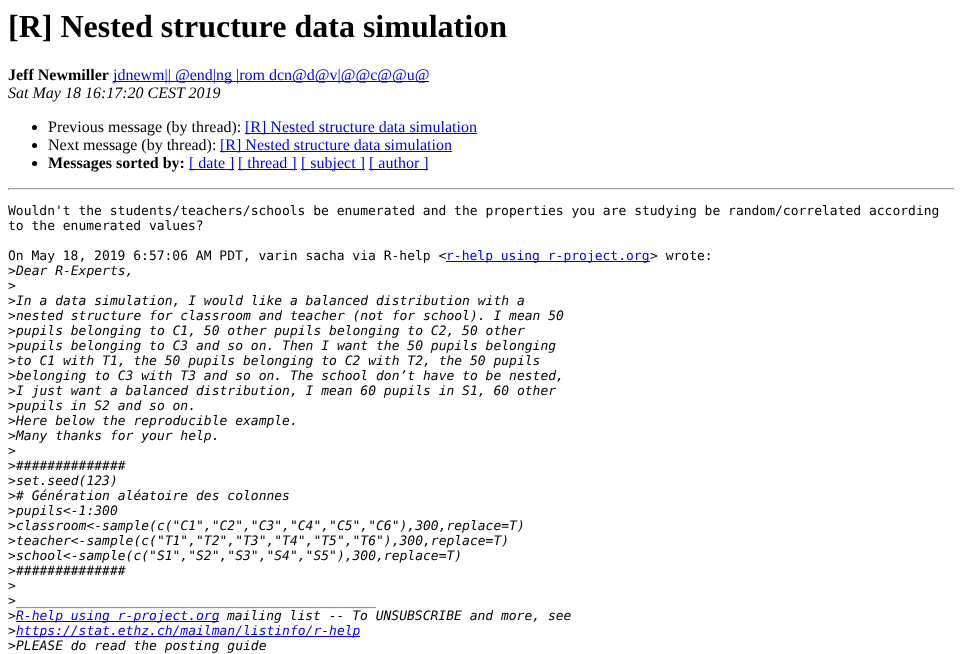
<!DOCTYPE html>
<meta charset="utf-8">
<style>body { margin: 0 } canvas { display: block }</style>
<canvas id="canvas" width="963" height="654"></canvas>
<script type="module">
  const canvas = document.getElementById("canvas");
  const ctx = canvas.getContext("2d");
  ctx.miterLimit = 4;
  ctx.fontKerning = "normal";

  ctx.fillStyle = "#ffffff";
  ctx.fillRect(0, 0, 963, 654);
  ctx.font = "bold 32px Liberation Serif";
  ctx.fillStyle = "#000000";
  ctx.fillText("[R] Nested structure data simulation", 8, 37);
  ctx.font = "bold 16px Liberation Serif";
  ctx.fillText("Jeff Newmiller", 8, 80);
  ctx.fillStyle = "#0000ee";
  ctx.fillRect(113, 81, 316, 1);
  ctx.font = "16px Liberation Serif";
  ctx.fillText("jdnewm|| @end|ng |rom dcn@d@v|@@c@@u@", 113, 80);
  ctx.font = "italic 16px Liberation Serif";
  ctx.fillStyle = "#000000";
  ctx.fillText("Sat May 18 16:17:20 CEST 2019", 8, 98);
  ctx.beginPath();
  ctx.arc(34.5, 127.5, 2.5, 0, Math.PI * 2);
  ctx.fill();
  ctx.font = "16px Liberation Serif";
  ctx.fillText("Previous message (by thread):", 48, 132);
  ctx.fillStyle = "#0000ee";
  ctx.fillRect(245, 133, 232, 1);
  ctx.fillText("[R] Nested structure data simulation", 245, 132);
  ctx.fillStyle = "#000000";
  ctx.beginPath();
  ctx.arc(34.5, 145.5, 2.5, 0, Math.PI * 2);
  ctx.fill();
  ctx.fillText("Next message (by thread):", 48, 150);
  ctx.fillStyle = "#0000ee";
  ctx.fillRect(220, 151, 232, 1);
  ctx.fillText("[R] Nested structure data simulation", 220, 150);
  ctx.fillStyle = "#000000";
  ctx.beginPath();
  ctx.arc(34.5, 163.5, 2.5, 0, Math.PI * 2);
  ctx.fill();
  ctx.font = "bold 16px Liberation Serif";
  ctx.fillText("Messages sorted by:", 48, 168);
  ctx.fillStyle = "#0000ee";
  ctx.fillRect(189, 169, 45, 1);
  ctx.font = "16px Liberation Serif";
  ctx.fillText("[ date ]", 189, 168);
  ctx.fillRect(238, 169, 59, 1);
  ctx.fillText("[ thread ]", 238, 168);
  ctx.fillRect(301, 169, 64, 1);
  ctx.fillText("[ subject ]", 301, 168);
  ctx.fillRect(369, 169, 59, 1);
  ctx.fillText("[ author ]", 369, 168);
  ctx.fillStyle = "#9f9f9f";
  ctx.fillRect(8, 188, 947, 1);
  ctx.fillStyle = "#eeeeee";
  ctx.fillRect(954, 188, 1, 2);
  ctx.fillRect(8, 189, 947, 1);
  ctx.fillStyle = "#9f9f9f";
  ctx.fillRect(8, 188, 1, 2);
  ctx.font = "13px DejaVu Sans Mono";
  ctx.fillStyle = "#000000";
  ctx.fillText("Wouldn't the students/teachers/schools be enumerated and the properties you are studying be random/correlated according", 8, 215);
  ctx.fillText("to the enumerated values?", 8, 230);
  ctx.fillText("On May 18, 2019 6:57:06 AM PDT, varin sacha via R-help <", 8, 260);
  ctx.fillStyle = "#0000ee";
  ctx.fillRect(446, 261, 204, 1);
  ctx.fillText("r-help using r-project.org", 446, 260);
  ctx.fillStyle = "#000000";
  ctx.fillText("> wrote:", 650, 260);
  ctx.fillText(">", 8, 275);
  ctx.font = "italic 13px DejaVu Sans Mono";
  ctx.fillText("Dear R-Experts,", 16, 275);
  ctx.font = "13px DejaVu Sans Mono";
  ctx.fillText(">", 8, 290);
  ctx.fillText(">", 8, 305);
  ctx.font = "italic 13px DejaVu Sans Mono";
  ctx.fillText("In a data simulation, I would like a balanced distribution with a", 16, 305);
  ctx.font = "13px DejaVu Sans Mono";
  ctx.fillText(">", 8, 320);
  ctx.font = "italic 13px DejaVu Sans Mono";
  ctx.fillText("nested structure for classroom and teacher (not for school). I mean 50", 16, 320);
  ctx.font = "13px DejaVu Sans Mono";
  ctx.fillText(">", 8, 335);
  ctx.font = "italic 13px DejaVu Sans Mono";
  ctx.fillText("pupils belonging to C1, 50 other pupils belonging to C2, 50 other", 16, 335);
  ctx.font = "13px DejaVu Sans Mono";
  ctx.fillText(">", 8, 350);
  ctx.font = "italic 13px DejaVu Sans Mono";
  ctx.fillText("pupils belonging to C3 and so on. Then I want the 50 pupils belonging", 16, 350);
  ctx.font = "13px DejaVu Sans Mono";
  ctx.fillText(">", 8, 365);
  ctx.font = "italic 13px DejaVu Sans Mono";
  ctx.fillText("to C1 with T1, the 50 pupils belonging to C2 with T2, the 50 pupils", 16, 365);
  ctx.font = "13px DejaVu Sans Mono";
  ctx.fillText(">", 8, 380);
  ctx.font = "italic 13px DejaVu Sans Mono";
  ctx.fillText("belonging to C3 with T3 and so on. The school don’t have to be nested,", 16, 380);
  ctx.font = "13px DejaVu Sans Mono";
  ctx.fillText(">", 8, 395);
  ctx.font = "italic 13px DejaVu Sans Mono";
  ctx.fillText("I just want a balanced distribution, I mean 60 pupils in S1, 60 other", 16, 395);
  ctx.font = "13px DejaVu Sans Mono";
  ctx.fillText(">", 8, 410);
  ctx.font = "italic 13px DejaVu Sans Mono";
  ctx.fillText("pupils in S2 and so on.", 16, 410);
  ctx.font = "13px DejaVu Sans Mono";
  ctx.fillText(">", 8, 425);
  ctx.font = "italic 13px DejaVu Sans Mono";
  ctx.fillText("Here below the reproducible example.", 16, 425);
  ctx.font = "13px DejaVu Sans Mono";
  ctx.fillText(">", 8, 440);
  ctx.font = "italic 13px DejaVu Sans Mono";
  ctx.fillText("Many thanks for your help.", 16, 440);
  ctx.font = "13px DejaVu Sans Mono";
  ctx.fillText(">", 8, 455);
  ctx.fillText(">", 8, 470);
  ctx.font = "italic 13px DejaVu Sans Mono";
  ctx.fillText("##############", 16, 470);
  ctx.font = "13px DejaVu Sans Mono";
  ctx.fillText(">", 8, 485);
  ctx.font = "italic 13px DejaVu Sans Mono";
  ctx.fillText("set.seed(123)", 16, 485);
  ctx.font = "13px DejaVu Sans Mono";
  ctx.fillText(">", 8, 500);
  ctx.font = "italic 13px DejaVu Sans Mono";
  ctx.fillText("# Génération aléatoire des colonnes", 16, 500);
  ctx.font = "13px DejaVu Sans Mono";
  ctx.fillText(">", 8, 515);
  ctx.font = "italic 13px DejaVu Sans Mono";
  ctx.fillText("pupils<-1:300", 16, 515);
  ctx.font = "13px DejaVu Sans Mono";
  ctx.fillText(">", 8, 530);
  ctx.font = "italic 13px DejaVu Sans Mono";
  ctx.fillText("classroom<-sample(c(\"C1\",\"C2\",\"C3\",\"C4\",\"C5\",\"C6\"),300,replace=T)", 16, 530);
  ctx.font = "13px DejaVu Sans Mono";
  ctx.fillText(">", 8, 545);
  ctx.font = "italic 13px DejaVu Sans Mono";
  ctx.fillText("teacher<-sample(c(\"T1\",\"T2\",\"T3\",\"T4\",\"T5\",\"T6\"),300,replace=T)", 16, 545);
  ctx.font = "13px DejaVu Sans Mono";
  ctx.fillText(">", 8, 560);
  ctx.font = "italic 13px DejaVu Sans Mono";
  ctx.fillText("school<-sample(c(\"S1\",\"S2\",\"S3\",\"S4\",\"S5\"),300,replace=T)", 16, 560);
  ctx.font = "13px DejaVu Sans Mono";
  ctx.fillText(">", 8, 575);
  ctx.font = "italic 13px DejaVu Sans Mono";
  ctx.fillText("##############", 16, 575);
  ctx.font = "13px DejaVu Sans Mono";
  ctx.fillText(">", 8, 590);
  ctx.fillText(">", 8, 605);
  ctx.font = "italic 13px DejaVu Sans Mono";
  ctx.fillText("______________________________________________", 16, 605);
  ctx.font = "13px DejaVu Sans Mono";
  ctx.fillText(">", 8, 620);
  ctx.fillStyle = "#0000ee";
  ctx.fillRect(16, 621, 203, 1);
  ctx.font = "italic 13px DejaVu Sans Mono";
  ctx.fillText("R-help using r-project.org", 16, 620);
  ctx.fillStyle = "#000000";
  ctx.fillText("mailing list -- To UNSUBSCRIBE and more, see", 227, 620);
  ctx.font = "13px DejaVu Sans Mono";
  ctx.fillText(">", 8, 635);
  ctx.fillStyle = "#0000ee";
  ctx.fillRect(16, 636, 344, 1);
  ctx.font = "italic 13px DejaVu Sans Mono";
  ctx.fillText("https://stat.ethz.ch/mailman/listinfo/r-help", 16, 635);
  ctx.font = "13px DejaVu Sans Mono";
  ctx.fillStyle = "#000000";
  ctx.fillText(">", 8, 650);
  ctx.font = "italic 13px DejaVu Sans Mono";
  ctx.fillText("PLEASE do read the posting guide", 16, 650);
</script>
